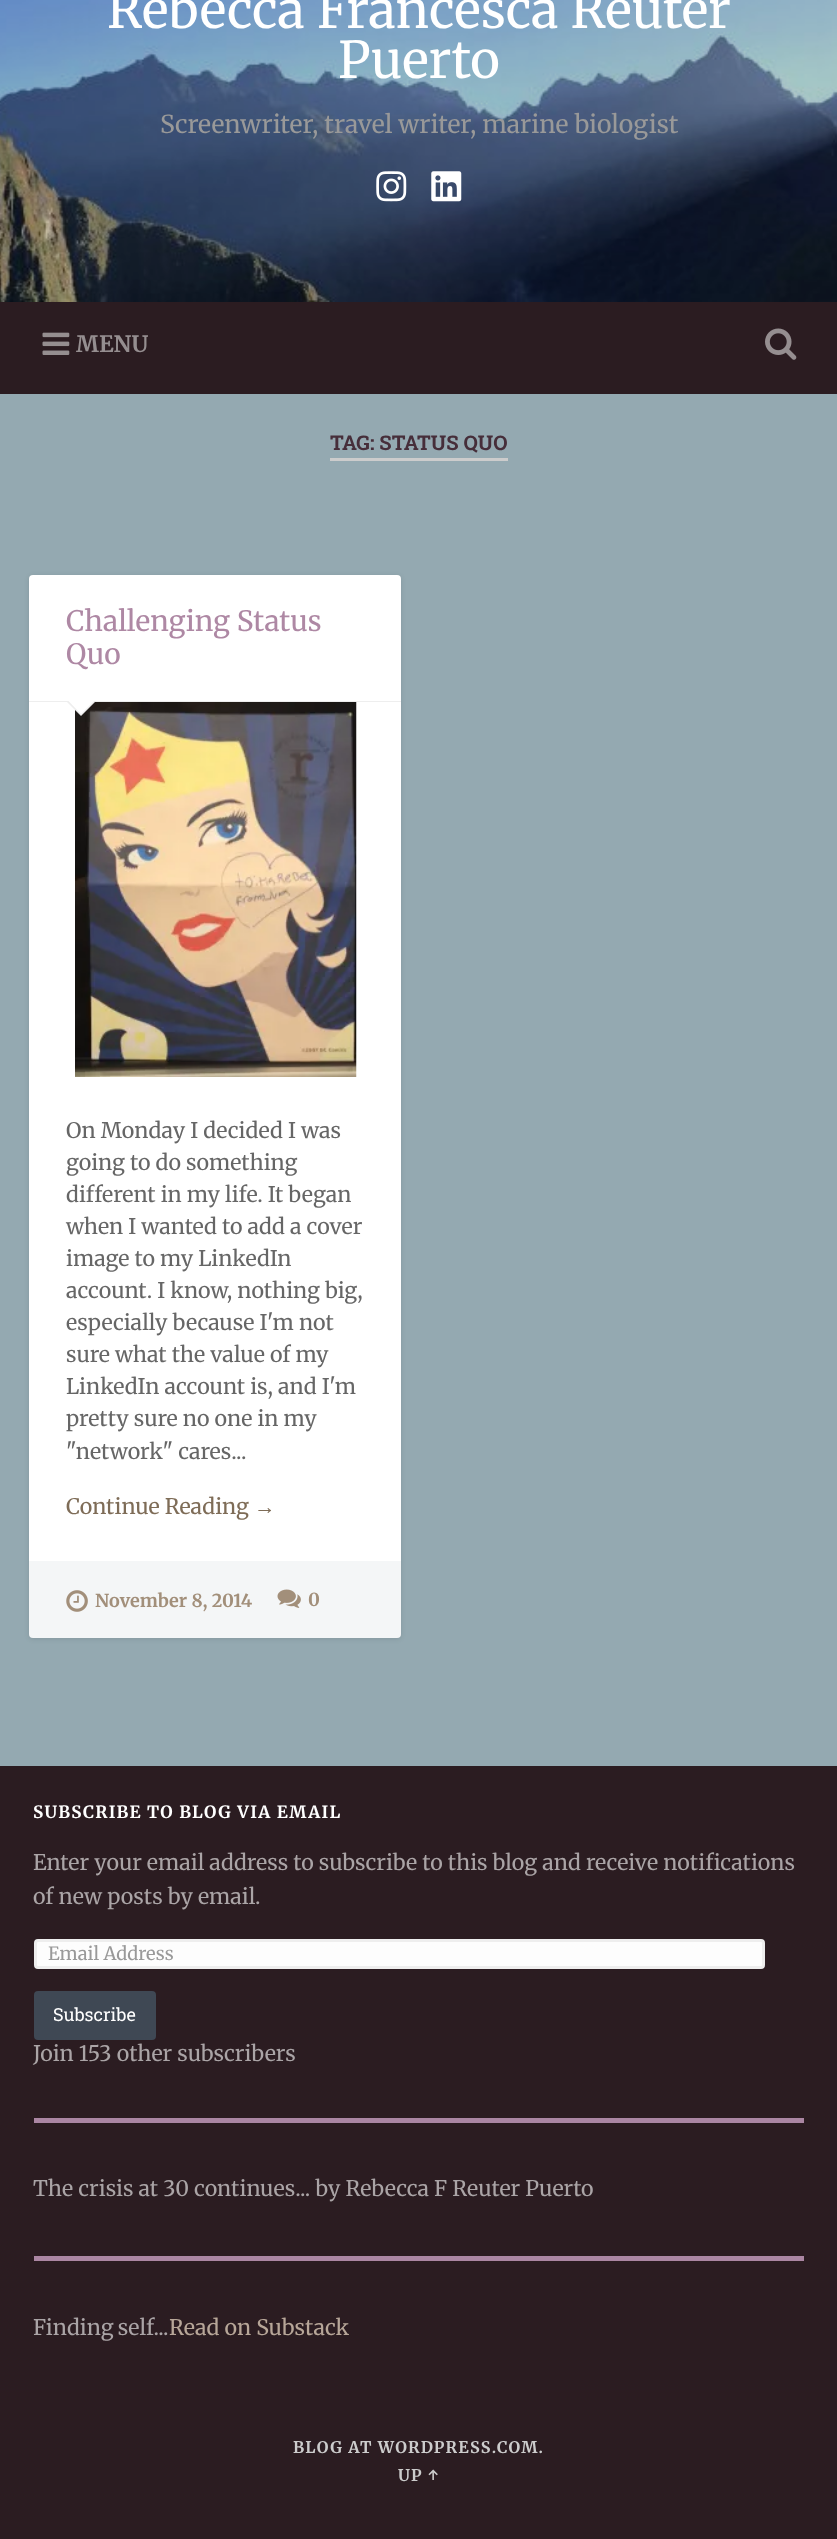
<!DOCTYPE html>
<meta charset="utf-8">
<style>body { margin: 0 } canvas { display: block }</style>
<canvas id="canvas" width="837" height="2539"></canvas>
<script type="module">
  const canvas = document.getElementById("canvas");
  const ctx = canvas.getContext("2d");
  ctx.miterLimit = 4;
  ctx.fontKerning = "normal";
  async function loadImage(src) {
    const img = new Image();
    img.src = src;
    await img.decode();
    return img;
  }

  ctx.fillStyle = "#94a9b1";
  ctx.fillRect(0, 0, 837, 2539);
  ctx.fillStyle = "#2b1c21";
  ctx.fillRect(0, 302, 837, 92);
  ctx.drawImage(await loadImage("img1.png"), 0, 0, 837, 302);
  ctx.font = "50.6px Merriweather";
  ctx.fillStyle = "#ffffff";
  ctx.fillText("Rebecca Francesca Reuter", 107, 28);
  ctx.fillText("Puerto", 338, 78);
  ctx.font = "24.75px Merriweather";
  ctx.fillStyle = "#999999";
  ctx.fillText("Screenwriter, travel writer, marine biologist", 160, 133);
  ctx.drawImage(await loadImage("img2.png"), 376, 171, 31, 31);
  ctx.drawImage(await loadImage("img3.png"), 431, 171, 31, 31);
  ctx.drawImage(await loadImage("img4.png"), 42, 332, 28, 23);
  ctx.font = "bold 22.5px Merriweather";
  ctx.fillStyle = "#958e90";
  ctx.fillText("MENU", 76, 352);
  ctx.drawImage(await loadImage("img5.png"), 765, 328, 32, 32);
  ctx.fillStyle = "#cccccc";
  ctx.fillRect(330, 458, 178, 3);
  ctx.font = "bold 20.25px Roboto Slab";
  ctx.fillStyle = "#462e3a";
  ctx.fillText("TAG: STATUS QUO", 330, 450);
  ctx.fillStyle = "rgba(0, 0, 0, 0.1)";
  ctx.filter = "blur(2.5px)";
  ctx.beginPath();
  ctx.roundRect(29, 576, 372, 1063, 4);
  ctx.fill();
  ctx.filter = "none";
  ctx.fillStyle = "#ffffff";
  ctx.beginPath();
  ctx.roundRect(29, 575, 372, 1063, 4);
  ctx.fill();
  ctx.fillStyle = "#eeeeee";
  ctx.fillRect(29, 701, 372, 1);
  ctx.font = "28.1px Merriweather";
  ctx.fillStyle = "#ae88a4";
  ctx.fillText("Challenging Status", 66, 631);
  ctx.fillText("Quo", 66, 664);
  ctx.drawImage(await loadImage("img6.png"), 75, 702, 282, 375);
  ctx.fillStyle = "#eeeeee";
  ctx.beginPath();
  ctx.moveTo(66, 701);
  ctx.lineTo(96, 701);
  ctx.lineTo(81, 716);
  ctx.closePath();
  ctx.fill();
  ctx.fillStyle = "#ffffff";
  ctx.beginPath();
  ctx.moveTo(67.5, 700);
  ctx.lineTo(95, 700);
  ctx.lineTo(81, 714);
  ctx.closePath();
  ctx.fill();
  ctx.font = "21.4px Merriweather";
  ctx.fillStyle = "#666666";
  ctx.fillText("On Monday I decided I was", 66, 1138);
  ctx.fillText("going to do something", 66, 1170);
  ctx.fillText("different in my life. It began", 66, 1202);
  ctx.fillText("when I wanted to add a cover", 66, 1234);
  ctx.fillText("image to my LinkedIn", 66, 1266);
  ctx.fillText("account. I know, nothing big,", 66, 1298);
  ctx.fillText("especially because I'm not", 66, 1330);
  ctx.fillText("sure what the value of my", 66, 1362);
  ctx.fillText("LinkedIn account is, and I'm", 66, 1394);
  ctx.fillText("pretty sure no one in my", 66, 1426);
  ctx.fillText("\"network\" cares...", 66, 1459);
  ctx.fillStyle = "#7e6c57";
  ctx.fillText("Continue Reading", 66, 1514);
  ctx.font = "21.4px Liberation Serif";
  ctx.fillText("→", 254, 1514);
  ctx.fillStyle = "rgba(148, 169, 177, 0.1)";
  ctx.beginPath();
  ctx.roundRect(29, 1561, 372, 77, [0, 0, 4, 4]);
  ctx.fill();
  ctx.drawImage(await loadImage("img7.png"), 66, 1590, 22, 22);
  ctx.font = "bold 18px Merriweather";
  ctx.fillStyle = "#a28f7a";
  ctx.fillText("November 8, 2014", 95, 1607);
  ctx.drawImage(await loadImage("img8.png"), 277, 1589, 24, 19);
  ctx.fillText("0", 308, 1606);
  ctx.fillStyle = "#2b1c21";
  ctx.fillRect(0, 1766, 837, 773);
  ctx.letterSpacing = "1.25px";
  ctx.font = "bold 16.9px Merriweather";
  ctx.fillStyle = "#ffffff";
  ctx.fillText("SUBSCRIBE TO BLOG VIA EMAIL", 33, 1818);
  ctx.letterSpacing = "0px";
  ctx.font = "21.4px Merriweather";
  ctx.fillStyle = "#aaa4a6";
  ctx.fillText("Enter your email address to subscribe to this blog and receive notifications", 33, 1870);
  ctx.fillText("of new posts by email.", 33, 1904);
  ctx.fillStyle = "#fdfdfd";
  ctx.beginPath();
  ctx.roundRect(35.5, 1940.5, 728, 27, 2.5);
  ctx.fill();
  ctx.strokeStyle = "#eeeeee";
  ctx.lineWidth = 3;
  ctx.stroke();
  ctx.font = "18.25px Merriweather";
  ctx.fillStyle = "#999999";
  ctx.fillText("Email Address", 48, 1960);
  ctx.fillStyle = "#3f4854";
  ctx.beginPath();
  ctx.roundRect(34, 1991, 122, 49, 4);
  ctx.fill();
  ctx.font = "18px Roboto Slab";
  ctx.fillStyle = "#ffffff";
  ctx.fillText("Subscribe", 53, 2021);
  ctx.font = "21.4px Merriweather";
  ctx.fillStyle = "#aaa4a6";
  ctx.fillText("Join 153 other subscribers", 33, 2061);
  ctx.fillStyle = "#ab86a3";
  ctx.fillRect(34, 2118, 770, 5);
  ctx.fillStyle = "#aaa4a6";
  ctx.fillText("The crisis at 30 continues... by Rebecca F Reuter Puerto", 33, 2196);
  ctx.fillStyle = "#ab86a3";
  ctx.fillRect(34, 2256, 770, 5);
  ctx.wordSpacing = "-1px";
  ctx.fillStyle = "#aaa4a6";
  ctx.fillText("Finding self...", 33, 2335);
  ctx.wordSpacing = "0px";
  ctx.fillStyle = "#b7a698";
  ctx.fillText("Read on Substack", 169, 2335);
  ctx.letterSpacing = "1.25px";
  ctx.font = "bold 16px Merriweather";
  ctx.fillStyle = "#cccccc";
  ctx.fillText("BLOG AT WORDPRESS.COM.", 293, 2453);
  ctx.fillText("UP ↑", 398, 2481);
</script>
